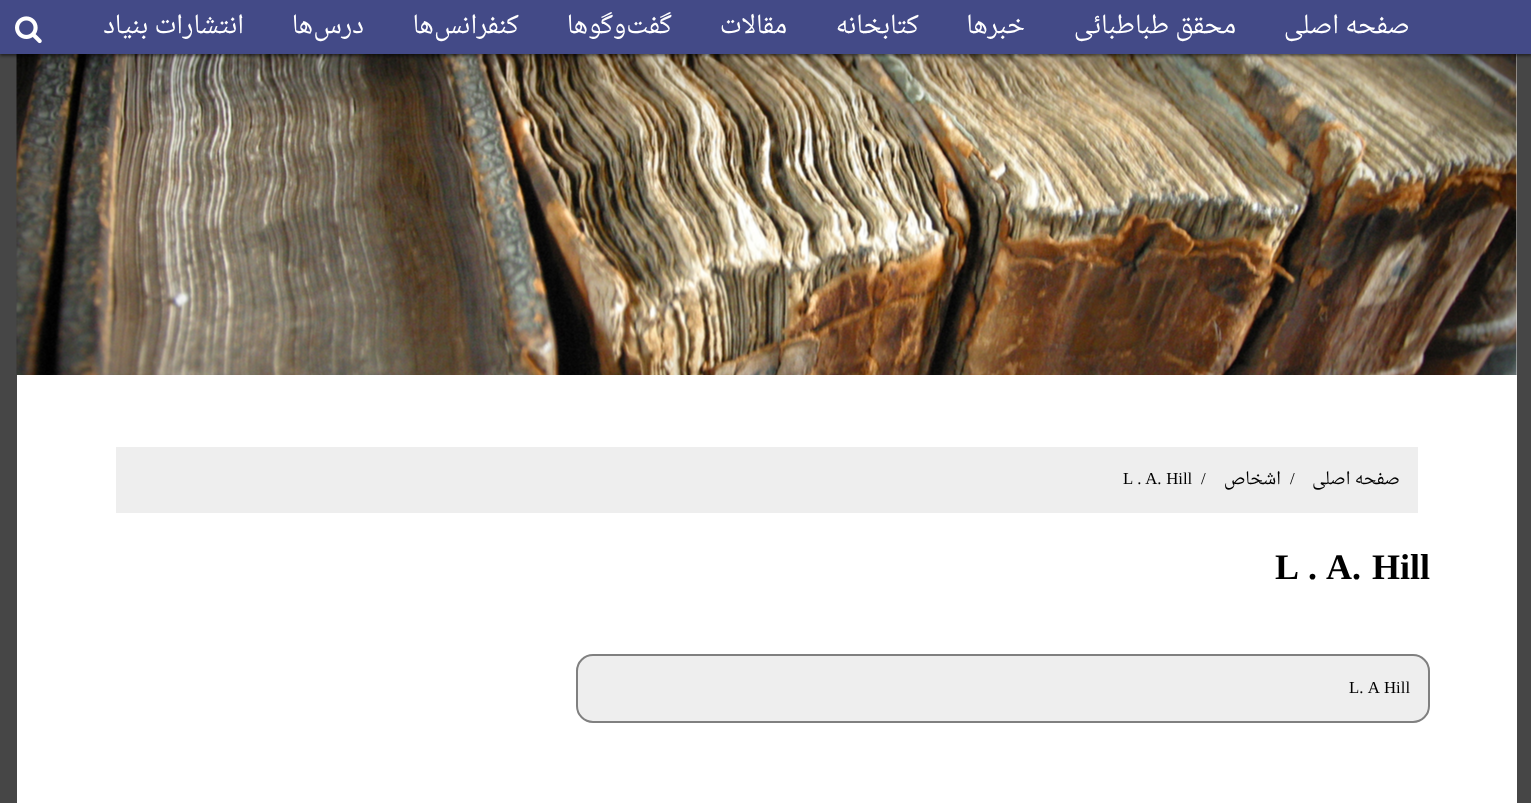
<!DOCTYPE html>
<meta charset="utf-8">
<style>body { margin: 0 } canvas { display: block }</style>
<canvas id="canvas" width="1531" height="803"></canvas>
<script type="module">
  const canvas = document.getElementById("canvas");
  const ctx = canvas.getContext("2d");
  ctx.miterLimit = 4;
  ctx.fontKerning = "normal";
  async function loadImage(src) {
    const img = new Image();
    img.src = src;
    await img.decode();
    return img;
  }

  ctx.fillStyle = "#464646";
  ctx.fillRect(0, 0, 1531, 803);
  ctx.fillStyle = "#dddddd";
  ctx.fillRect(1516, 54, 1, 321);
  ctx.drawImage(await loadImage("img2.png"), 16, 54, 1501, 321);
  ctx.fillStyle = "rgba(0, 0, 0, 0.5)";
  ctx.filter = "blur(1.5px)";
  ctx.beginPath();
  ctx.rect(0, 2, 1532, 54);
  ctx.fill();
  ctx.filter = "none";
  ctx.fillStyle = "#434a87";
  ctx.fillRect(0, 0, 1531, 54);
  ctx.direction = "rtl";
  ctx.font = "24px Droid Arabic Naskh";
  ctx.fillStyle = "#ffffff";
  ctx.fillText("صفحه اصلی", 1410, 33);
  ctx.fillText("محقق طباطبائی", 1236, 33);
  ctx.fillText("خبرها", 1025, 33);
  ctx.fillText("کتابخانه", 919, 33);
  ctx.fillText("مقالات", 787, 33);
  ctx.fillText("گفت‌وگوها", 672, 33);
  ctx.fillText("کنفرانس‌ها", 519, 33);
  ctx.fillText("درس‌ها", 364, 33);
  ctx.fillText("انتشارات بنیاد", 244, 33);
  ctx.drawImage(await loadImage("img1.png"), 15, 16, 27, 28);
  ctx.fillRect(17, 375, 1500, 428);
  ctx.fillStyle = "#eeeeee";
  ctx.fillRect(116, 447, 1302, 66);
  ctx.font = "16.75px Droid Arabic Naskh";
  ctx.fillStyle = "#000000";
  ctx.fillText("صفحه اصلی", 1400, 484);
  ctx.direction = "ltr";
  ctx.font = "16.75px Liberation Serif";
  ctx.fillText("/", 1290, 484);
  ctx.direction = "rtl";
  ctx.font = "16.75px Droid Arabic Naskh";
  ctx.fillText("اشخاص", 1281, 484);
  ctx.direction = "ltr";
  ctx.font = "16.75px Liberation Serif";
  ctx.fillText("/", 1201, 484);
  ctx.wordSpacing = "0.5px";
  ctx.fillText("L . A. Hill", 1123, 484);
  ctx.wordSpacing = "2px";
  ctx.font = "bold 36px Liberation Serif";
  ctx.fillText("L . A. Hill", 1275, 579);
  ctx.fillStyle = "#eeeeee";
  ctx.beginPath();
  ctx.roundRect(577, 655, 852, 67, 16);
  ctx.fill();
  ctx.strokeStyle = "#808080";
  ctx.lineWidth = 2;
  ctx.stroke();
  ctx.wordSpacing = "0px";
  ctx.font = "16.75px Liberation Serif";
  ctx.fillStyle = "#000000";
  ctx.fillText("Hill", 1384, 693);
  ctx.wordSpacing = "1px";
  ctx.fillText("L. A", 1349, 693);
</script>
